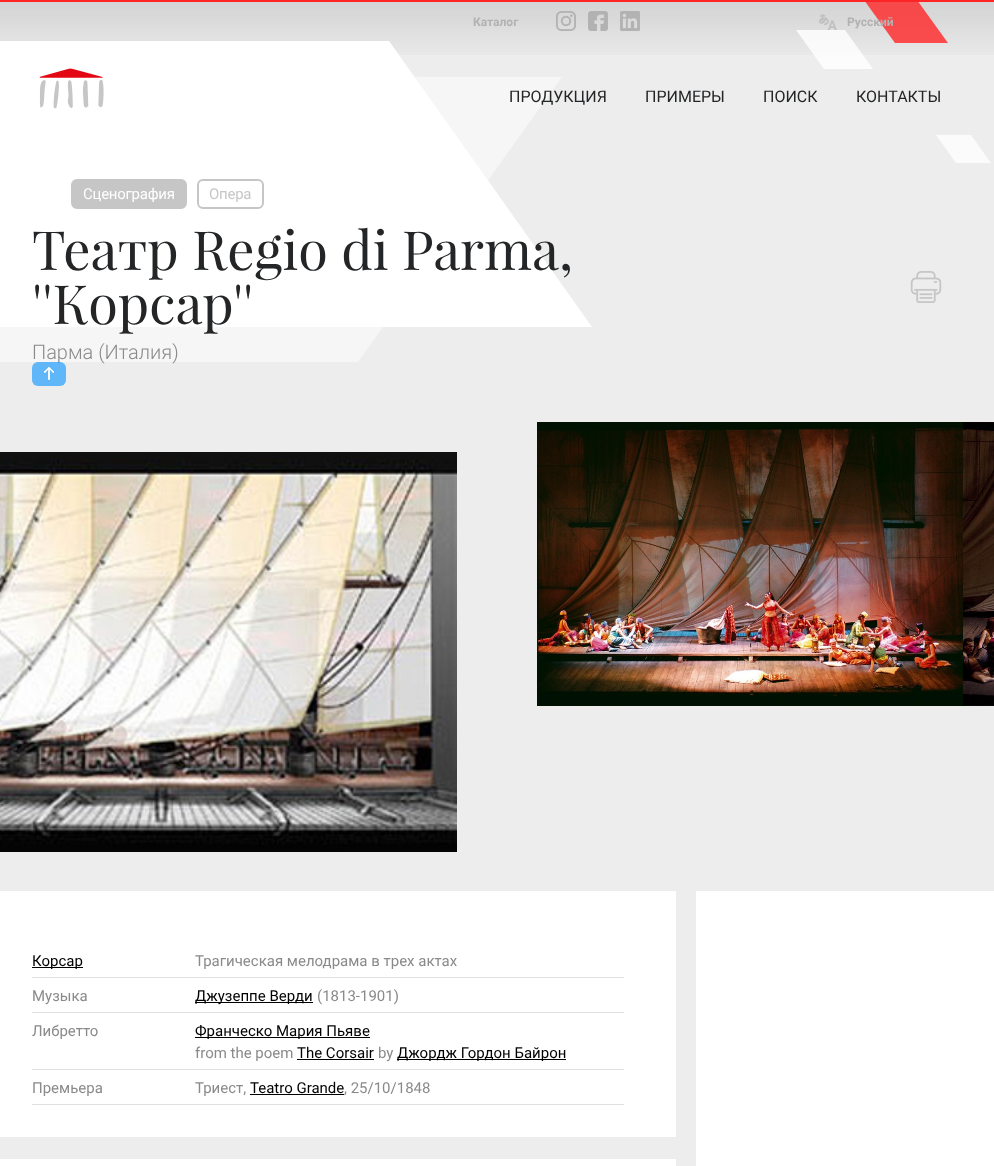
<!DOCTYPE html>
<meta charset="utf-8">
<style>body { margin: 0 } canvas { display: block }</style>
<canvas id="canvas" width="994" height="1166"></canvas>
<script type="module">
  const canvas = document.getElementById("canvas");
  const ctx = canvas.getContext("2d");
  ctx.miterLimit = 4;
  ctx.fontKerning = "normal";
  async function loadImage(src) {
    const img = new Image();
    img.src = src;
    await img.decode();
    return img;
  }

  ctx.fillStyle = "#ededed";
  ctx.fillRect(0, 0, 994, 1166);
  ctx.drawImage(await loadImage("img1.png"), 0, 2, 994, 53);
  ctx.font = "bold 12px Roboto";
  ctx.fillStyle = "#b2b2b2";
  ctx.fillText("Каталог", 473, 26);
  ctx.drawImage(await loadImage("img2.png"), 556, 11, 20, 20);
  ctx.drawImage(await loadImage("img3.png"), 588, 11, 20, 20);
  ctx.drawImage(await loadImage("img4.png"), 620, 11, 20, 20);
  ctx.drawImage(await loadImage("img5.png"), 819, 14, 18, 16);
  ctx.fillStyle = "rgba(255, 255, 255, 0.8)";
  ctx.beginPath();
  ctx.moveTo(796, 30);
  ctx.lineTo(845, 30);
  ctx.lineTo(873, 69);
  ctx.lineTo(824, 69);
  ctx.closePath();
  ctx.fill();
  ctx.fillStyle = "rgba(255, 37, 37, 0.8)";
  ctx.beginPath();
  ctx.moveTo(864, 0);
  ctx.lineTo(917, 0);
  ctx.lineTo(948, 43);
  ctx.lineTo(895, 43);
  ctx.closePath();
  ctx.fill();
  ctx.fillStyle = "#b2b2b2";
  ctx.fillText("Русский", 847, 26);
  ctx.fillStyle = "#ffffff";
  ctx.beginPath();
  ctx.moveTo(-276, 41);
  ctx.lineTo(389, 41);
  ctx.lineTo(592, 327);
  ctx.lineTo(-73, 327);
  ctx.closePath();
  ctx.fill();
  ctx.fillStyle = "rgba(255, 255, 255, 0.48)";
  ctx.beginPath();
  ctx.moveTo(-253, 77);
  ctx.lineTo(562, 77);
  ctx.lineTo(358, 362);
  ctx.lineTo(-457, 362);
  ctx.closePath();
  ctx.fill();
  ctx.drawImage(await loadImage("img6.png"), 39, 68, 65, 41);
  ctx.font = "16px Roboto";
  ctx.fillStyle = "#232527";
  ctx.fillText("ПРОДУКЦИЯ", 509, 102);
  ctx.fillText("ПРИМЕРЫ", 645, 102);
  ctx.fillText("ПОИСК", 763, 102);
  ctx.fillText("КОНТАКТЫ", 856, 102);
  ctx.fillStyle = "#ff2525";
  ctx.fillRect(0, 0, 994, 2);
  ctx.fillStyle = "#fbfbfb";
  ctx.beginPath();
  ctx.moveTo(936, 135);
  ctx.lineTo(971, 135);
  ctx.lineTo(991, 163);
  ctx.lineTo(956, 163);
  ctx.closePath();
  ctx.fill();
  ctx.fillStyle = "#c6c6c6";
  ctx.beginPath();
  ctx.roundRect(72, 180, 114, 28, 5);
  ctx.fill();
  ctx.strokeStyle = "#c6c6c6";
  ctx.lineWidth = 2;
  ctx.stroke();
  ctx.letterSpacing = "-0.25px";
  ctx.font = "15px Roboto";
  ctx.fillStyle = "#ffffff";
  ctx.fillText("Сценография", 83, 199);
  ctx.beginPath();
  ctx.roundRect(198, 180, 65, 28, 5);
  ctx.stroke();
  ctx.fillStyle = "#c6c6c6";
  ctx.fillText("Опера", 209, 199);
  ctx.letterSpacing = "0px";
  ctx.font = "300 20px Roboto";
  ctx.fillStyle = "#8a8a8a";
  ctx.fillText("Парма (Италия)", 32, 359);
  ctx.fillStyle = "rgba(0, 145, 255, 0.6)";
  ctx.beginPath();
  ctx.roundRect(32, 362, 34, 24, 6);
  ctx.fill();
  ctx.drawImage(await loadImage("img7.png"), 44, 367, 10, 13);
  ctx.font = "54px Playfair Display";
  ctx.fillStyle = "#232527";
  ctx.fillText("Театр Regio di Parma,", 32, 270);
  ctx.fillText("''Корсар''", 32, 324);
  ctx.drawImage(await loadImage("img8.png"), 910, 271, 32, 32);
  ctx.drawImage(await loadImage("img9.png"), 0, 452, 457, 400);
  ctx.drawImage(await loadImage("img10.png"), 537, 422, 426, 284);
  ctx.drawImage(await loadImage("img11.png"), 963, 422, 31, 284);
  ctx.fillStyle = "#ffffff";
  ctx.fillRect(0, 891, 676, 275);
  ctx.fillStyle = "#dfdfdf";
  ctx.fillRect(32, 977, 592, 1);
  ctx.fillStyle = "#000000";
  ctx.fillRect(32, 967, 51, 1);
  ctx.font = "15px Roboto";
  ctx.fillText("Корсар", 32, 966);
  ctx.fillStyle = "#8a8a8a";
  ctx.fillText("Трагическая мелодрама в трех актах", 195, 966);
  ctx.fillStyle = "#dfdfdf";
  ctx.fillRect(32, 1012, 592, 1);
  ctx.fillStyle = "#8a8a8a";
  ctx.fillText("Музыка", 32, 1001);
  ctx.fillStyle = "#000000";
  ctx.fillRect(195, 1002, 118, 1);
  ctx.fillText("Джузеппе Верди", 195, 1001);
  ctx.fillStyle = "#8a8a8a";
  ctx.fillText("(1813-1901)", 317, 1001);
  ctx.fillStyle = "#dfdfdf";
  ctx.fillRect(32, 1069, 592, 1);
  ctx.fillStyle = "#8a8a8a";
  ctx.fillText("Либретто", 32, 1036);
  ctx.fillStyle = "#000000";
  ctx.fillRect(195, 1037, 175, 1);
  ctx.fillText("Франческо Мария Пьяве", 195, 1036);
  ctx.fillStyle = "#8a8a8a";
  ctx.fillText("from the poem", 195, 1058);
  ctx.fillStyle = "#000000";
  ctx.fillText("The Corsair", 297, 1058);
  ctx.fillRect(297, 1059, 77, 1);
  ctx.fillStyle = "#8a8a8a";
  ctx.fillText("by", 378, 1058);
  ctx.fillStyle = "#000000";
  ctx.fillRect(397, 1059, 169, 1);
  ctx.fillText("Джордж Гордон Байрон", 397, 1058);
  ctx.fillStyle = "#dfdfdf";
  ctx.fillRect(32, 1104, 592, 1);
  ctx.fillStyle = "#8a8a8a";
  ctx.fillText("Премьера", 32, 1093);
  ctx.fillText("Триест,", 195, 1093);
  ctx.fillStyle = "#000000";
  ctx.fillText("Teatro Grande", 250, 1093);
  ctx.fillRect(250, 1094, 94, 1);
  ctx.fillStyle = "#8a8a8a";
  ctx.fillText(", 25/10/1848", 344, 1093);
  ctx.fillStyle = "#ededed";
  ctx.fillRect(0, 1137, 676, 22);
  ctx.fillStyle = "#ffffff";
  ctx.fillRect(696, 891, 298, 275);
</script>
